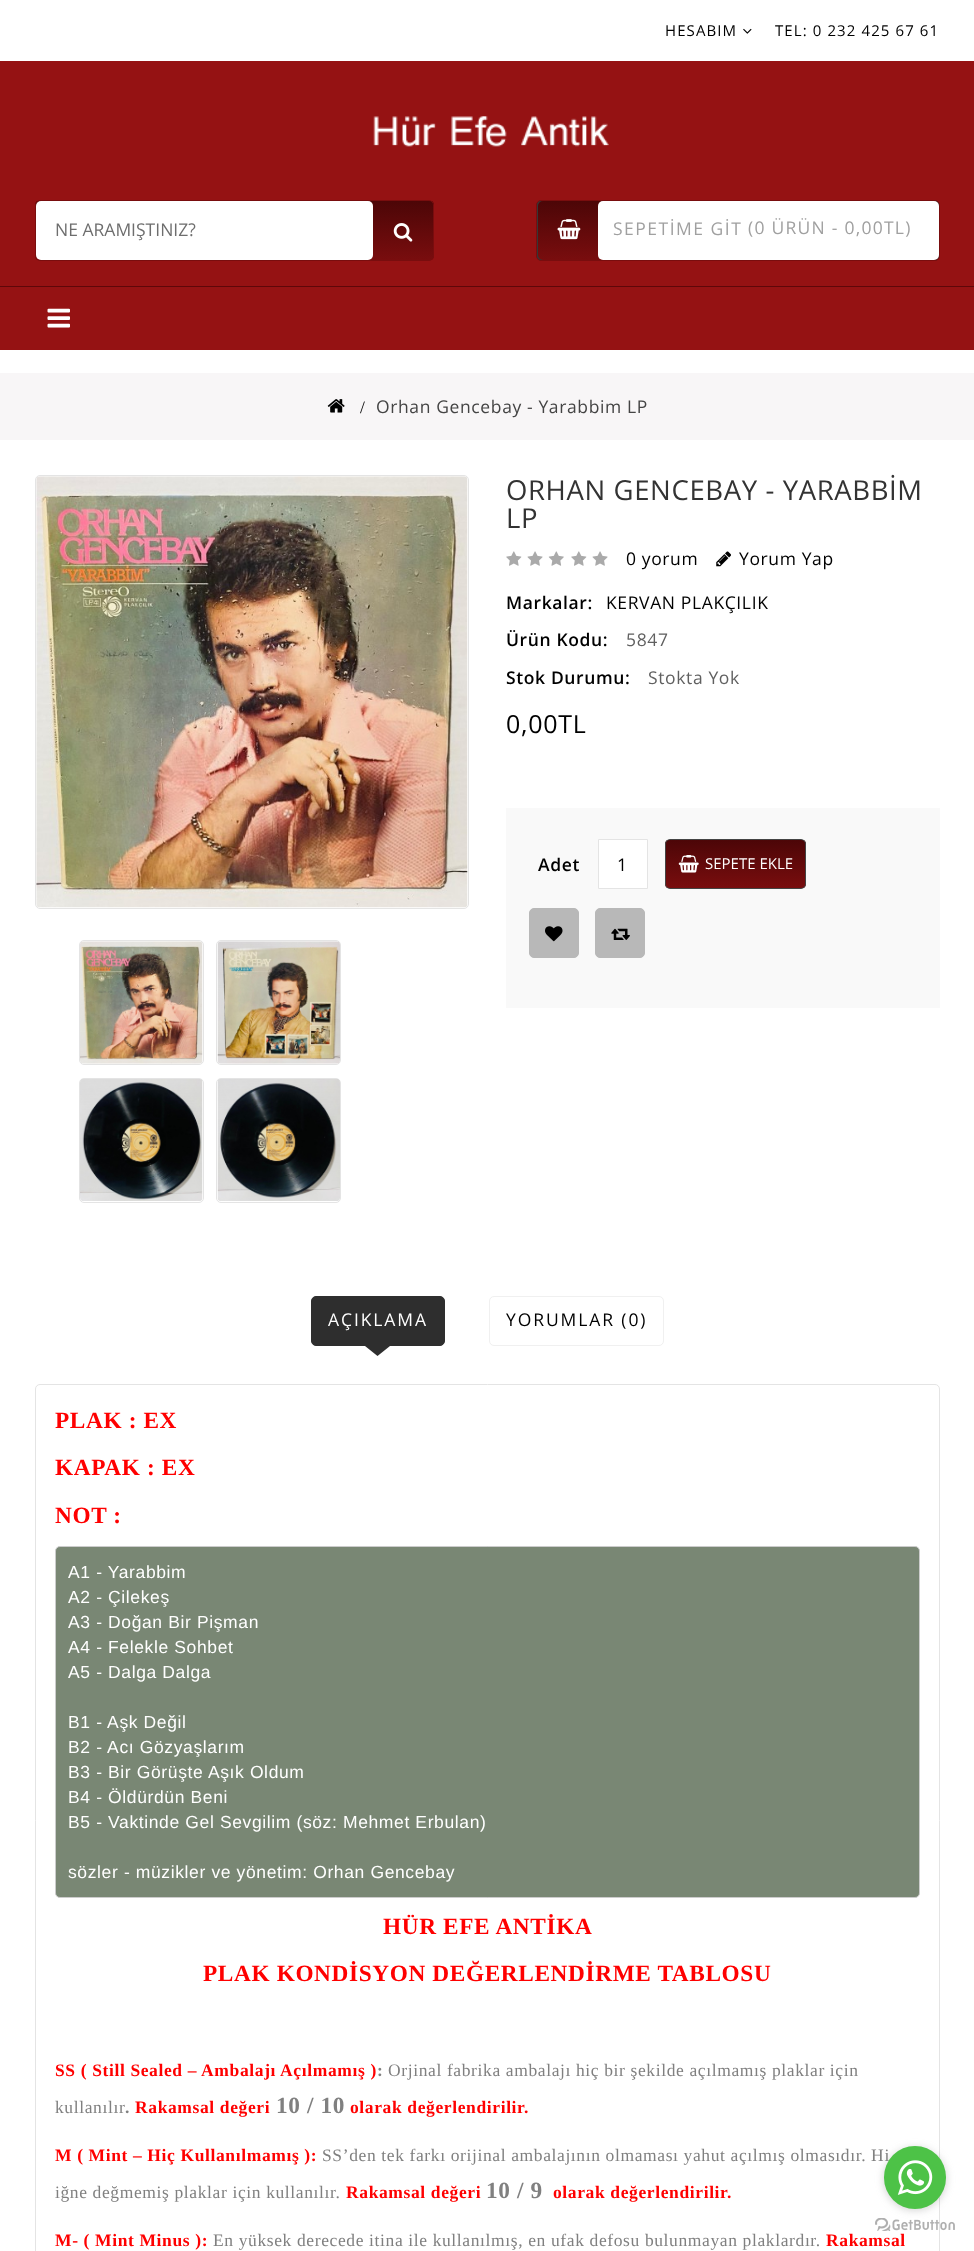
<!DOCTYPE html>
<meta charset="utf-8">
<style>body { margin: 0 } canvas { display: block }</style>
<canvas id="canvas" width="974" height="2251"></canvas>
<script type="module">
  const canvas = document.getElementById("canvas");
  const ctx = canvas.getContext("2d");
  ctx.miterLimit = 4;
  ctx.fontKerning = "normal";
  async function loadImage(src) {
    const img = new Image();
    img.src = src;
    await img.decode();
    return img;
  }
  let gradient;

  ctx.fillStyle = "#ffffff";
  ctx.fillRect(0, 0, 974, 2251);
  ctx.letterSpacing = "1.1px";
  ctx.font = "15px Open Sans";
  ctx.fillStyle = "#000000";
  ctx.fillText("HESABIM", 665, 36);
  ctx.drawImage(await loadImage("img1.png"), 743, 28, 9, 6);
  ctx.fillText("TEL: 0 232 425 67 61", 775, 36);
  ctx.fillStyle = "#951213";
  ctx.fillRect(0, 61, 974, 289);
  ctx.drawImage(await loadImage("img2.png"), 373, 116, 236, 31);
  ctx.save();
  ctx.beginPath();
  ctx.roundRect(35, 200, 399, 61, 5);
  ctx.clip();
  gradient = ctx.createLinearGradient(234, 260, 234, 201);
  gradient.addColorStop(0, "#790d0e");
  gradient.addColorStop(1, "#4c0607");
  ctx.fillStyle = gradient;
  ctx.fillRect(35, 201, 399, 59);
  ctx.restore();
  ctx.beginPath();
  ctx.roundRect(35.5, 200.5, 398, 60, 4.5);
  ctx.strokeStyle = "#790d0e";
  ctx.stroke();
  ctx.fillStyle = "#ffffff";
  ctx.beginPath();
  ctx.roundRect(36, 201, 337, 59, 5);
  ctx.fill();
  ctx.letterSpacing = "0px";
  ctx.font = "17.5px Open Sans";
  ctx.fillStyle = "#6e6e6e";
  ctx.fillText("NE ARAMIŞTINIZ?", 55, 236);
  ctx.drawImage(await loadImage("img3.png"), 393, 223, 20, 19);
  ctx.fillStyle = "#363636";
  ctx.beginPath();
  ctx.roundRect(536.5, 200.5, 403, 60, 4.5);
  ctx.fill();
  ctx.stroke();
  gradient = ctx.createLinearGradient(738, 260, 738, 201);
  gradient.addColorStop(0, "#790d0e");
  gradient.addColorStop(1, "#4c0607");
  ctx.fillStyle = gradient;
  ctx.beginPath();
  ctx.roundRect(538, 201, 401, 59, 5);
  ctx.fill();
  ctx.drawImage(await loadImage("img4.png"), 557, 219, 24, 21);
  ctx.fillStyle = "#ffffff";
  ctx.beginPath();
  ctx.roundRect(598, 201, 341, 59, 5);
  ctx.fill();
  ctx.letterSpacing = "1.5px";
  ctx.fillStyle = "#a0a0a0";
  ctx.fillText("SEPETİME GİT", 613, 235);
  ctx.letterSpacing = "1.25px";
  ctx.fillText("(0 ÜRÜN - 0,00TL)", 748, 234);
  ctx.fillStyle = "#5f0709";
  ctx.fillRect(0, 286, 974, 1);
  ctx.drawImage(await loadImage("img5.png"), 47, 308, 23, 20);
  ctx.fillStyle = "#f8f6f7";
  ctx.fillRect(0, 373, 974, 67);
  ctx.drawImage(await loadImage("img6.png"), 327, 399, 18, 14);
  ctx.letterSpacing = "0.62px";
  ctx.font = "17.5px Liberation Serif";
  ctx.fillStyle = "#000000";
  ctx.fillText("/", 360, 413);
  ctx.font = "17.5px Open Sans";
  ctx.fillStyle = "#444444";
  ctx.fillText("Orhan Gencebay - Yarabbim LP", 376, 413);
  ctx.beginPath();
  ctx.roundRect(35.5, 475.5, 433, 433, 4.5);
  ctx.strokeStyle = "#e4e4e4";
  ctx.stroke();
  ctx.drawImage(await loadImage("img7.png"), 36, 476, 432, 432);
  ctx.beginPath();
  ctx.roundRect(79.5, 940.5, 124, 124, 4.5);
  ctx.stroke();
  ctx.drawImage(await loadImage("img8.png"), 80, 941, 123, 123);
  ctx.beginPath();
  ctx.roundRect(216.5, 940.5, 124, 124, 4.5);
  ctx.stroke();
  ctx.drawImage(await loadImage("img9.png"), 217, 941, 123, 123);
  ctx.beginPath();
  ctx.roundRect(79.5, 1078.5, 124, 124, 4.5);
  ctx.stroke();
  ctx.drawImage(await loadImage("img10.png"), 80, 1079, 123, 122);
  ctx.beginPath();
  ctx.roundRect(216.5, 1078.5, 124, 124, 4.5);
  ctx.stroke();
  ctx.drawImage(await loadImage("img11.png"), 217, 1079, 123, 122);
  ctx.font = "27.5px Open Sans";
  ctx.fillStyle = "#333333";
  ctx.fillText("ORHAN GENCEBAY - YARABBİM", 506, 500);
  ctx.fillText("LP", 506, 528);
  ctx.drawImage(await loadImage("img12.png"), 506, 551, 16, 15);
  ctx.drawImage(await loadImage("img13.png"), 527, 551, 16, 15);
  ctx.drawImage(await loadImage("img14.png"), 548, 551, 16, 15);
  ctx.drawImage(await loadImage("img12.png"), 571, 551, 16, 15);
  ctx.drawImage(await loadImage("img13.png"), 592, 551, 16, 15);
  ctx.font = "17.5px Open Sans";
  ctx.fillStyle = "#000000";
  ctx.fillText("0 yorum", 626, 565);
  ctx.drawImage(await loadImage("img15.png"), 716, 551, 15, 16);
  ctx.fillText("Yorum Yap", 739, 565);
  ctx.font = "600 17.5px Open Sans";
  ctx.fillText("Markalar:", 506, 609);
  ctx.font = "17.5px Open Sans";
  ctx.fillText("KERVAN PLAKÇILIK", 606, 609);
  ctx.font = "600 17.5px Open Sans";
  ctx.fillText("Ürün Kodu:", 506, 646);
  ctx.font = "17.5px Open Sans";
  ctx.fillStyle = "#606060";
  ctx.fillText("5847", 626, 646);
  ctx.font = "600 17.5px Open Sans";
  ctx.fillStyle = "#000000";
  ctx.fillText("Stok Durumu:", 506, 684);
  ctx.font = "17.5px Open Sans";
  ctx.fillStyle = "#606060";
  ctx.fillText("Stokta Yok", 648, 684);
  ctx.letterSpacing = "0.75px";
  ctx.font = "25px Open Sans";
  ctx.fillStyle = "#000000";
  ctx.fillText("0,00TL", 506, 733);
  ctx.fillStyle = "#f9f9f9";
  ctx.fillRect(506, 808, 434, 200);
  ctx.letterSpacing = "0.62px";
  ctx.font = "600 17.5px Open Sans";
  ctx.fillStyle = "#000000";
  ctx.fillText("Adet", 538, 871);
  ctx.fillStyle = "#ffffff";
  ctx.beginPath();
  ctx.rect(598.5, 839.5, 49, 49);
  ctx.fill();
  ctx.stroke();
  ctx.letterSpacing = "0px";
  ctx.font = "17.5px Open Sans";
  ctx.fillStyle = "#000000";
  ctx.fillText("1", 617, 871);
  ctx.save();
  ctx.beginPath();
  ctx.roundRect(665, 839, 141, 50, 5);
  ctx.clip();
  gradient = ctx.createLinearGradient(736, 888, 736, 840);
  gradient.addColorStop(0, "#790d0e");
  gradient.addColorStop(1, "#4c0607");
  ctx.fillStyle = gradient;
  ctx.fillRect(665, 840, 141, 48);
  ctx.restore();
  ctx.beginPath();
  ctx.roundRect(665.5, 839.5, 140, 49, 4.5);
  ctx.strokeStyle = "#444444";
  ctx.stroke();
  ctx.drawImage(await loadImage("img16.png"), 678, 855, 21, 18);
  ctx.font = "15px Open Sans";
  ctx.fillStyle = "#ffffff";
  ctx.fillText("SEPETE EKLE", 705, 869);
  ctx.fillStyle = "#b8b8b8";
  ctx.beginPath();
  ctx.roundRect(529.5, 908.5, 49, 49, 4.5);
  ctx.fill();
  ctx.strokeStyle = "#b8b8b8";
  ctx.stroke();
  ctx.drawImage(await loadImage("img17.png"), 545, 926, 18, 16);
  ctx.beginPath();
  ctx.roundRect(595.5, 908.5, 49, 49, 4.5);
  ctx.fill();
  ctx.stroke();
  ctx.drawImage(await loadImage("img18.png"), 611, 928, 19, 12);
  ctx.fillStyle = "#2e2e2e";
  ctx.beginPath();
  ctx.roundRect(311.5, 1296.5, 133, 49, 4.5);
  ctx.fill();
  ctx.strokeStyle = "#2e2e2e";
  ctx.stroke();
  ctx.letterSpacing = "1.9px";
  ctx.font = "17.5px Open Sans";
  ctx.fillStyle = "#ffffff";
  ctx.fillText("AÇIKLAMA", 328, 1326);
  ctx.fillStyle = "#2e2e2e";
  ctx.beginPath();
  ctx.moveTo(365, 1346);
  ctx.lineTo(390, 1346);
  ctx.lineTo(377.5, 1356);
  ctx.closePath();
  ctx.fill();
  ctx.beginPath();
  ctx.roundRect(489.5, 1296.5, 174, 49, 4.5);
  ctx.strokeStyle = "#f0f0f0";
  ctx.stroke();
  ctx.fillStyle = "#000000";
  ctx.fillText("YORUMLAR (0)", 506, 1326);
  ctx.beginPath();
  ctx.roundRect(35.5, 1384.5, 904, 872, 4.5);
  ctx.strokeStyle = "#e4e4e4";
  ctx.stroke();
  ctx.letterSpacing = "0.62px";
  ctx.font = "bold 23.3px Liberation Serif";
  ctx.fillStyle = "#ff0000";
  ctx.fillText("PLAK : EX", 55, 1428);
  ctx.fillText("KAPAK : EX", 55, 1475);
  ctx.fillText("NOT :", 55, 1523);
  ctx.fillStyle = "#798774";
  ctx.beginPath();
  ctx.roundRect(55.5, 1546.5, 864, 351, 4.5);
  ctx.fill();
  ctx.strokeStyle = "#cccccc";
  ctx.stroke();
  ctx.font = "17.5px Liberation Sans";
  ctx.fillStyle = "#ffffff";
  ctx.fillText("A1 - Yarabbim", 68, 1578);
  ctx.fillText("A2 - Çilekeş", 68, 1603);
  ctx.fillText("A3 - Doğan Bir Pişman", 68, 1628);
  ctx.fillText("A4 - Felekle Sohbet", 68, 1653);
  ctx.fillText("A5 - Dalga Dalga", 68, 1678);
  ctx.fillText("B1 - Aşk Değil", 68, 1728);
  ctx.fillText("B2 - Acı Gözyaşlarım", 68, 1753);
  ctx.fillText("B3 - Bir Görüşte Aşık Oldum", 68, 1778);
  ctx.fillText("B4 - Öldürdün Beni", 68, 1803);
  ctx.fillText("B5 - Vaktinde Gel Sevgilim (söz: Mehmet Erbulan)", 68, 1828);
  ctx.fillText("sözler - müzikler ve yönetim: Orhan Gencebay", 68, 1878);
  ctx.font = "bold 23.3px Liberation Serif";
  ctx.fillStyle = "#ff0000";
  ctx.fillText("HÜR EFE ANTİKA", 383, 1934);
  ctx.fillText("PLAK KONDİSYON DEĞERLENDİRME TABLOSU", 203, 1981);
  ctx.font = "bold 17.5px Liberation Serif";
  ctx.fillText("SS ( Still Sealed – Ambalajı Açılmamış )", 55, 2076);
  ctx.fillStyle = "#808080";
  ctx.fillText(":", 377, 2076);
  ctx.font = "17.5px Liberation Serif";
  ctx.fillText("Orjinal fabrika ambalajı hiç bir şekilde açılmamış plaklar için", 388, 2076);
  ctx.fillText("kullanılır", 55, 2113);
  ctx.font = "bold 17.5px Liberation Serif";
  ctx.fillText(".", 125, 2113);
  ctx.fillStyle = "#ff0000";
  ctx.fillText("Rakamsal değeri", 135, 2113);
  ctx.font = "bold 23.3px Liberation Serif";
  ctx.fillStyle = "#808080";
  ctx.fillText("10 / 10", 276, 2113);
  ctx.font = "bold 17.5px Liberation Serif";
  ctx.fillStyle = "#ff0000";
  ctx.fillText("olarak değerlendirilir.", 350, 2113);
  ctx.fillText("M ( Mint – Hiç Kullanılmamış ):", 55, 2161);
  ctx.font = "17.5px Liberation Serif";
  ctx.fillStyle = "#808080";
  ctx.fillText("SS’den tek farkı orijinal ambalajının olmaması yahut açılmış olmasıdır. Hi", 322, 2161);
  ctx.fillText("iğne değmemiş plaklar için kullanılır.", 55, 2198);
  ctx.font = "bold 17.5px Liberation Serif";
  ctx.fillStyle = "#ff0000";
  ctx.fillText("Rakamsal değeri", 346, 2198);
  ctx.font = "bold 23.3px Liberation Serif";
  ctx.fillStyle = "#808080";
  ctx.fillText("10 / 9", 486, 2198);
  ctx.font = "bold 17.5px Liberation Serif";
  ctx.fillStyle = "#ff0000";
  ctx.fillText("olarak değerlendirilir.", 553, 2198);
  ctx.fillText("M- ( Mint Minus ):", 55, 2246);
  ctx.font = "17.5px Liberation Serif";
  ctx.fillStyle = "#808080";
  ctx.fillText("En yüksek derecede itina ile kullanılmış, en ufak defosu bulunmayan plaklardır.", 213, 2246);
  ctx.font = "bold 17.5px Liberation Serif";
  ctx.fillStyle = "#ff0000";
  ctx.fillText("Rakamsal", 826, 2246);
  ctx.drawImage(await loadImage("img20.png"), 875, 2218, 80, 13);
  ctx.fillStyle = "rgba(136, 136, 136, 0.4)";
  ctx.filter = "blur(4.5px)";
  ctx.beginPath();
  ctx.roundRect(884, 2148, 62, 62, 31);
  ctx.fill();
  ctx.filter = "none";
  ctx.fillStyle = "#4dc247";
  ctx.beginPath();
  ctx.roundRect(884, 2146, 62, 63, 31);
  ctx.fill();
  ctx.drawImage(await loadImage("img19.png"), 897, 2160, 36, 35);
</script>
